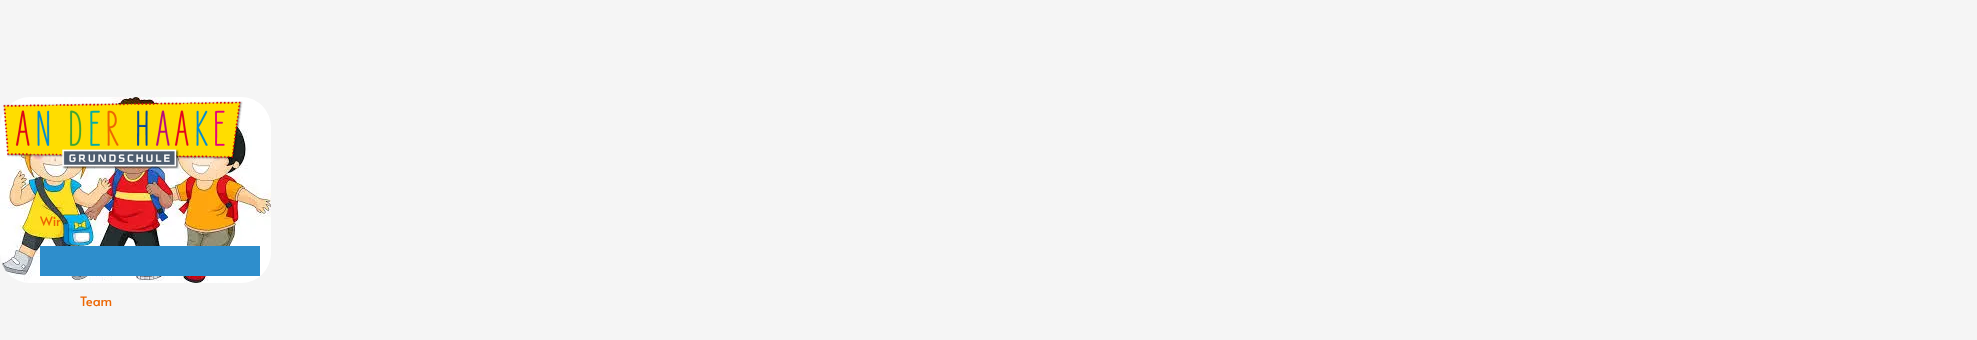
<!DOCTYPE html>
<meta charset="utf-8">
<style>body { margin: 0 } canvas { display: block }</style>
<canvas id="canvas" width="1977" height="340"></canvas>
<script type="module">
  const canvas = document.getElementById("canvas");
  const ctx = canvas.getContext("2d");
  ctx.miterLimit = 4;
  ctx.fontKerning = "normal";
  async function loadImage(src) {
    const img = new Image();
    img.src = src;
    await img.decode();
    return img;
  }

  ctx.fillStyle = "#f5f5f5";
  ctx.fillRect(0, 0, 1977, 340);
  ctx.drawImage(await loadImage("img1.png"), 0, 97, 271, 186);
  ctx.drawImage(await loadImage("img2.png"), 3, 101, 240, 68);
  ctx.font = "13px Alata";
  ctx.fillStyle = "#ec6501";
  ctx.fillText("Wir", 40, 226);
  ctx.fillStyle = "#2e8ecc";
  ctx.fillRect(40, 246, 220, 30);
  ctx.fillStyle = "#ec6501";
  ctx.fillText("Team", 80, 306);
</script>
